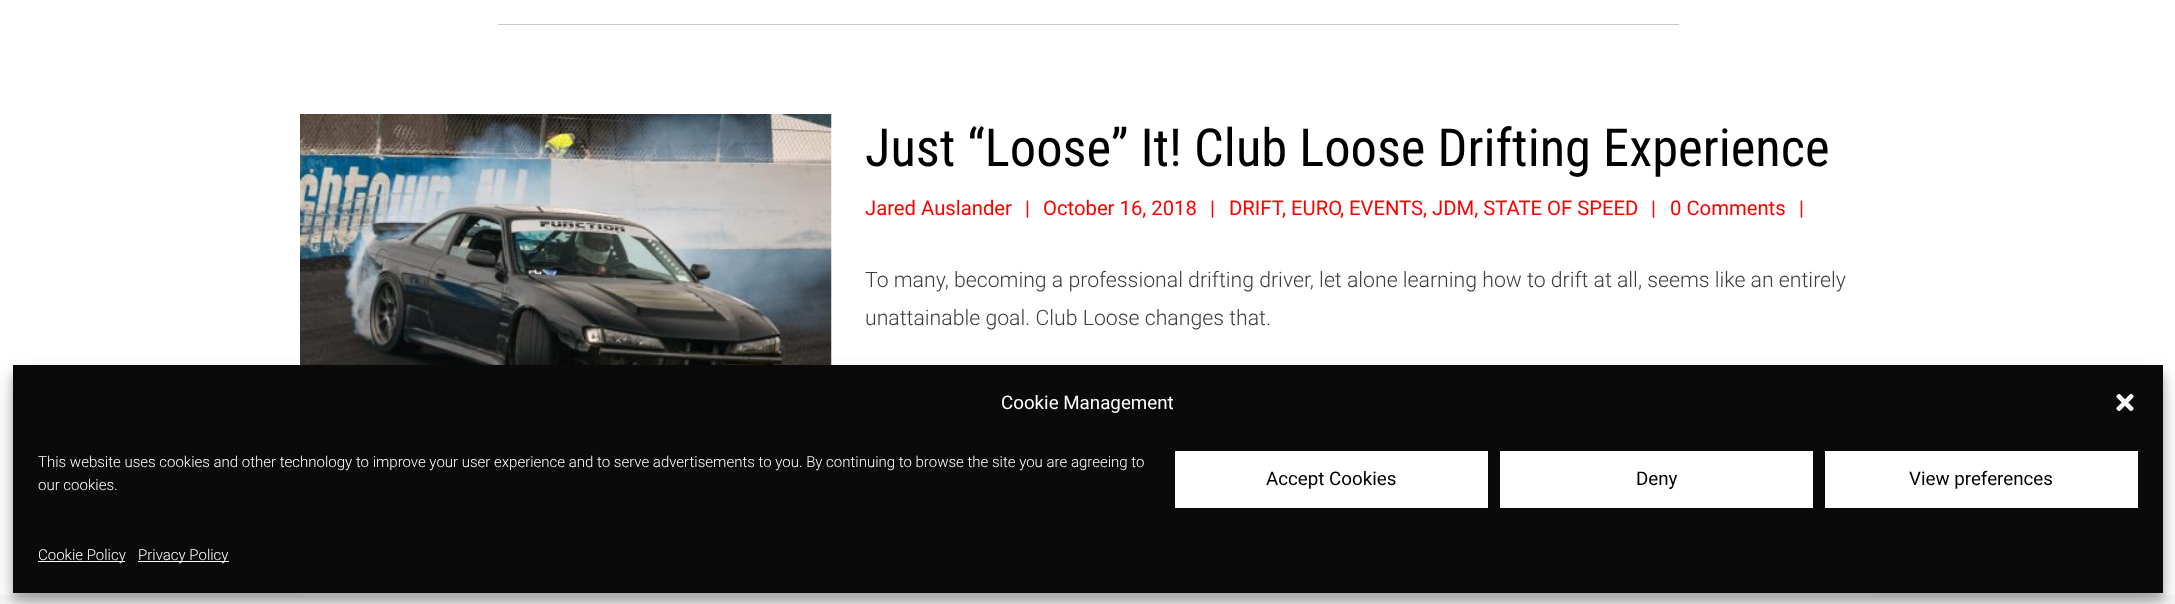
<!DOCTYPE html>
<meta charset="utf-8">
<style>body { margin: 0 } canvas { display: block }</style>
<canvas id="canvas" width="2175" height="604"></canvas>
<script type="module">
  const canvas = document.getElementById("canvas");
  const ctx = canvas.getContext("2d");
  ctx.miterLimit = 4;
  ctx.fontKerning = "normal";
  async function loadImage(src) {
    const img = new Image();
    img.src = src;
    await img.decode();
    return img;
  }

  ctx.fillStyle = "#ffffff";
  ctx.fillRect(0, 0, 2175, 604);
  ctx.fillStyle = "#c9c9c9";
  ctx.fillRect(498, 24, 1181, 1);
  ctx.drawImage(await loadImage("img1.png"), 300, 114, 532, 251);
  ctx.font = "52.5px Roboto Condensed";
  ctx.fillStyle = "#000000";
  ctx.fillText("Just “Loose” It! Club Loose Drifting Experience", 865, 166);
  ctx.font = "20.25px Roboto";
  ctx.fillStyle = "#ff0000";
  ctx.fillText("Jared Auslander", 865, 215);
  ctx.fillText("|", 1025, 215);
  ctx.fillText("October 16, 2018", 1043, 215);
  ctx.fillText("|", 1210, 215);
  ctx.fillText("DRIFT", 1229, 215);
  ctx.fillText(", EURO", 1282, 215);
  ctx.fillText(", EVENTS, JDM, STATE OF SPEED", 1340, 215);
  ctx.fillText("|", 1651, 215);
  ctx.fillText("0 Comments", 1670, 215);
  ctx.fillText("|", 1799, 215);
  ctx.font = "300 21.25px Roboto";
  ctx.fillStyle = "#3d3d3d";
  ctx.fillText("To many, becoming a professional drifting driver, let alone learning how to drift at all, seems like an entirely", 865, 287);
  ctx.fillText("unattainable goal. Club Loose changes that.", 865, 325);
  ctx.fillStyle = "#f7f7f7";
  ctx.fillRect(0, 595, 2175, 9);
  ctx.fillStyle = "#ffffff";
  ctx.fillRect(300, 595, 1575, 1);
  ctx.fillStyle = "rgba(0, 0, 0, 0.23)";
  ctx.filter = "blur(4px)";
  ctx.beginPath();
  ctx.rect(13, 373, 2150, 227);
  ctx.fill();
  ctx.filter = "none";
  ctx.fillStyle = "rgba(0, 0, 0, 0.19)";
  ctx.filter = "blur(12.5px)";
  ctx.beginPath();
  ctx.rect(13, 378, 2150, 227);
  ctx.fill();
  ctx.filter = "none";
  ctx.fillStyle = "#0a0a0a";
  ctx.fillRect(13, 365, 2150, 228);
  ctx.font = "18.75px Roboto";
  ctx.fillStyle = "#ffffff";
  ctx.fillText("Cookie Management", 1001, 409);
  ctx.drawImage(await loadImage("img2.png"), 2116, 393, 18, 18);
  ctx.font = "300 15px Roboto";
  ctx.fillText("This website uses cookies and other technology to improve your user experience and to serve advertisements to you. By continuing to browse the site you are agreeing to", 38, 467);
  ctx.fillText("our cookies.", 38, 490);
  ctx.fillRect(1175, 451, 313, 57);
  ctx.font = "18.75px Roboto";
  ctx.fillStyle = "#000000";
  ctx.fillText("Accept Cookies", 1266, 485);
  ctx.fillStyle = "#ffffff";
  ctx.fillRect(1500, 451, 313, 57);
  ctx.fillStyle = "#000000";
  ctx.fillText("Deny", 1636, 485);
  ctx.fillStyle = "#ffffff";
  ctx.fillRect(1825, 451, 313, 57);
  ctx.fillStyle = "#000000";
  ctx.fillText("View preferences", 1909, 485);
  ctx.fillStyle = "#ffffff";
  ctx.fillRect(38, 561, 87, 1);
  ctx.font = "300 15px Roboto";
  ctx.fillText("Cookie Policy", 38, 560);
  ctx.fillRect(138, 561, 91, 1);
  ctx.fillText("Privacy Policy", 138, 560);
</script>
